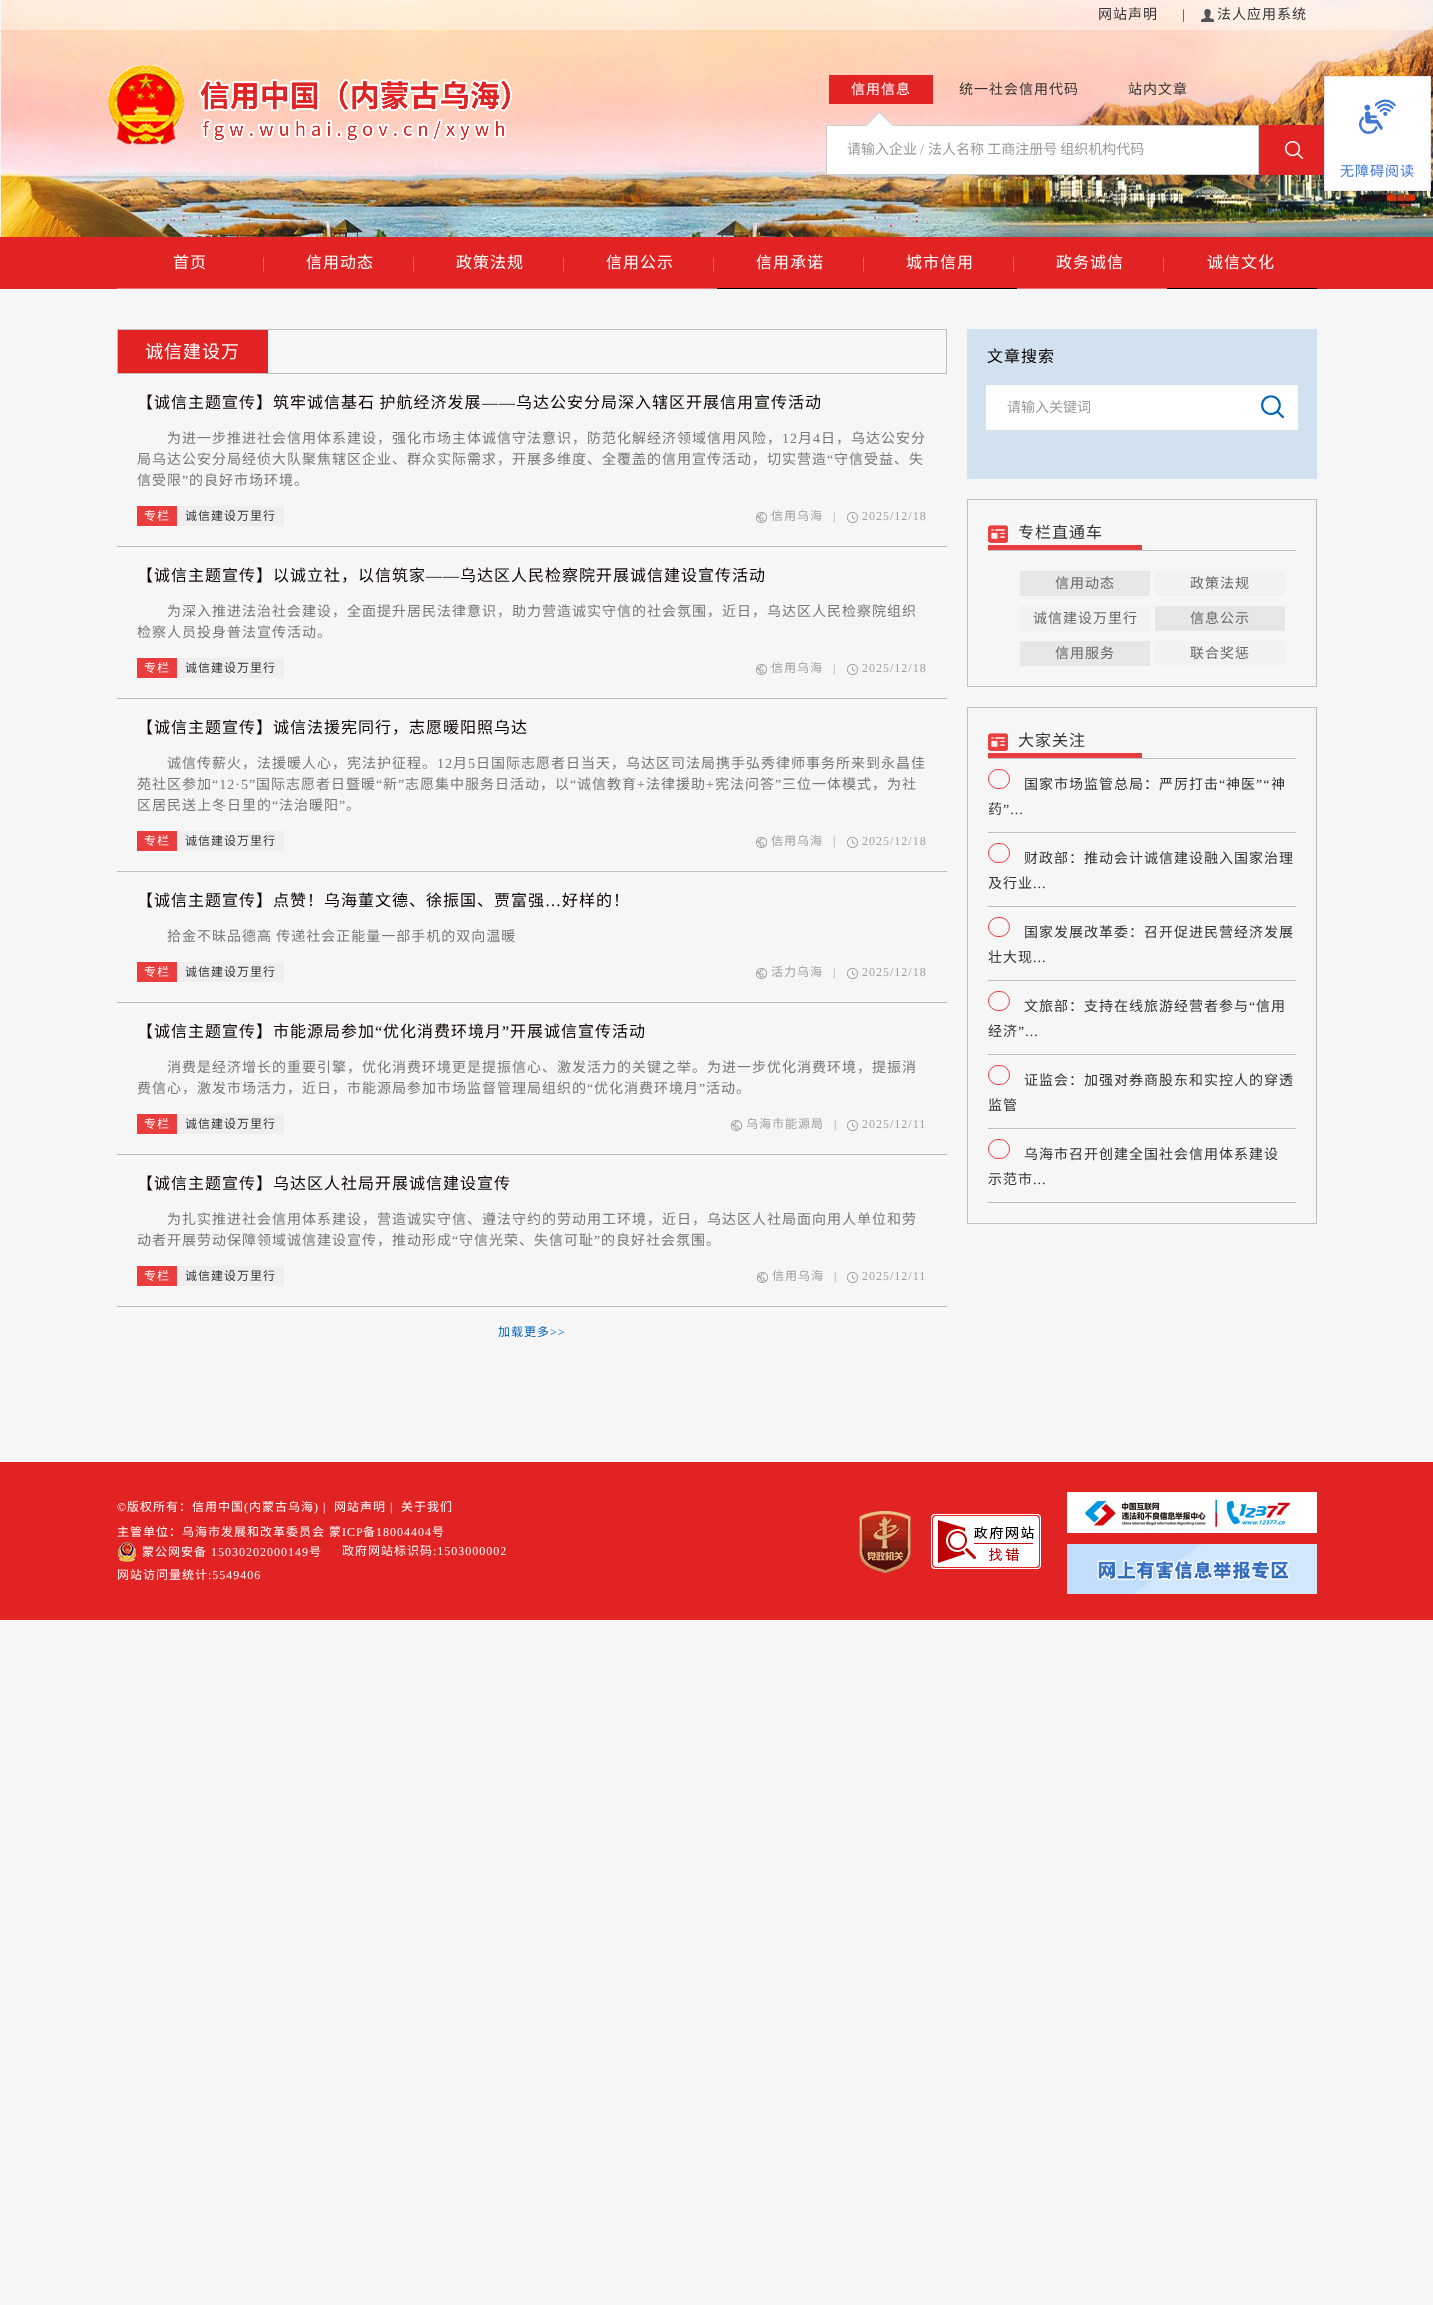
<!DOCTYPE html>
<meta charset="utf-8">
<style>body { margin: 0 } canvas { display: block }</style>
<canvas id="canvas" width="1433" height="2305"></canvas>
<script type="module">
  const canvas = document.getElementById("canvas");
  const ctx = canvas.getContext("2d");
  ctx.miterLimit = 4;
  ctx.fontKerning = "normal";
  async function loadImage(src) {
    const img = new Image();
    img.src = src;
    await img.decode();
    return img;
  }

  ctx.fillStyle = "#f6f6f6";
  ctx.fillRect(0, 0, 1433, 2305);
  ctx.drawImage(await loadImage("img1.png"), 0, 0, 1433, 237);
  ctx.fillStyle = "rgba(255, 255, 255, 0.4)";
  ctx.fillRect(0, 0, 1433, 30);
  ctx.letterSpacing = "1px";
  ctx.font = "14px Noto Sans CJK SC";
  ctx.fillStyle = "#333333";
  ctx.fillText("网站声明", 1098, 19);
  ctx.font = "14px Liberation Serif";
  ctx.fillText("|", 1182, 19);
  ctx.drawImage(await loadImage("img2.png"), 1201, 9, 13, 13);
  ctx.font = "14px Noto Sans CJK SC";
  ctx.fillText("法人应用系统", 1217, 19);
  ctx.drawImage(await loadImage("img3.png"), 108, 65, 404, 80);
  ctx.fillStyle = "#e22323";
  ctx.fillRect(829, 75, 104, 29);
  ctx.fillStyle = "#ffffff";
  ctx.fillText("信用信息", 851, 94);
  ctx.fillStyle = "#333333";
  ctx.fillText("统一社会信用代码", 959, 94);
  ctx.fillText("站内文章", 1128, 94);
  ctx.fillStyle = "#ffffff";
  ctx.beginPath();
  ctx.rect(826.5, 125.5, 432, 49);
  ctx.fill();
  ctx.strokeStyle = "#cccccc";
  ctx.stroke();
  ctx.drawImage(await loadImage("img4.png"), 865, 111, 29, 15);
  ctx.letterSpacing = "0px";
  ctx.fillStyle = "#999999";
  ctx.fillText("请输入企业", 847, 154);
  ctx.font = "14px Liberation Serif";
  ctx.fillText("/", 920, 154);
  ctx.font = "14px Noto Sans CJK SC";
  ctx.fillText("法人名称 工商注册号 组织机构代码", 928, 154);
  ctx.fillStyle = "#e22323";
  ctx.fillRect(1259, 125, 65, 50);
  ctx.drawImage(await loadImage("img5.png"), 1285, 141, 18, 18);
  ctx.fillStyle = "#ffffff";
  ctx.fillRect(1325, 77, 105, 113);
  ctx.drawImage(await loadImage("img6.png"), 1359, 99, 37, 35);
  ctx.strokeStyle = "#e8e8e8";
  ctx.strokeRect(1324.5, 76.5, 106, 114);
  ctx.letterSpacing = "1px";
  ctx.fillStyle = "#4078d6";
  ctx.fillText("无障碍阅读", 1340, 176);
  ctx.fillStyle = "#e22323";
  ctx.fillRect(0, 237, 1433, 52);
  ctx.fillStyle = "#000000";
  ctx.fillRect(717, 288, 600, 1);
  ctx.fillStyle = "#ec7272";
  ctx.fillRect(117, 288, 600, 1);
  ctx.font = "16px Noto Sans CJK SC";
  ctx.fillStyle = "#ffffff";
  ctx.fillText("首页", 173, 268);
  ctx.font = "16px Liberation Serif";
  ctx.fillStyle = "#ec7272";
  ctx.fillText("|", 262, 268);
  ctx.font = "16px Noto Sans CJK SC";
  ctx.fillStyle = "#ffffff";
  ctx.fillText("信用动态", 306, 268);
  ctx.font = "16px Liberation Serif";
  ctx.fillStyle = "#ec7272";
  ctx.fillText("|", 412, 268);
  ctx.font = "16px Noto Sans CJK SC";
  ctx.fillStyle = "#ffffff";
  ctx.fillText("政策法规", 456, 268);
  ctx.font = "16px Liberation Serif";
  ctx.fillStyle = "#ec7272";
  ctx.fillText("|", 562, 268);
  ctx.font = "16px Noto Sans CJK SC";
  ctx.fillStyle = "#ffffff";
  ctx.fillText("信用公示", 606, 268);
  ctx.font = "16px Liberation Serif";
  ctx.fillStyle = "#ec7272";
  ctx.fillText("|", 712, 268);
  ctx.font = "16px Noto Sans CJK SC";
  ctx.fillStyle = "#ffffff";
  ctx.fillText("信用承诺", 756, 268);
  ctx.font = "16px Liberation Serif";
  ctx.fillStyle = "#ec7272";
  ctx.fillText("|", 862, 268);
  ctx.font = "16px Noto Sans CJK SC";
  ctx.fillStyle = "#ffffff";
  ctx.fillText("城市信用", 906, 268);
  ctx.font = "16px Liberation Serif";
  ctx.fillStyle = "#ec7272";
  ctx.fillText("|", 1012, 268);
  ctx.fillRect(1017, 288, 150, 1);
  ctx.font = "16px Noto Sans CJK SC";
  ctx.fillStyle = "#ffffff";
  ctx.fillText("政务诚信", 1056, 268);
  ctx.font = "16px Liberation Serif";
  ctx.fillStyle = "#ec7272";
  ctx.fillText("|", 1162, 268);
  ctx.font = "16px Noto Sans CJK SC";
  ctx.fillStyle = "#ffffff";
  ctx.fillText("诚信文化", 1207, 268);
  ctx.strokeStyle = "#bebebe";
  ctx.strokeRect(117.5, 329.5, 829, 44);
  ctx.fillStyle = "#e22323";
  ctx.fillRect(118, 330, 150, 43);
  ctx.font = "18px Noto Sans CJK SC";
  ctx.fillStyle = "#ffffff";
  ctx.fillText("诚信建设万", 145, 358);
  ctx.fillStyle = "#bebebe";
  ctx.fillRect(117, 546, 830, 1);
  ctx.font = "16px Noto Sans CJK SC";
  ctx.fillStyle = "#0c0300";
  ctx.fillText("【诚信主题宣传】筑牢诚信基石 护航经济发展", 137, 408);
  ctx.font = "16px Liberation Serif";
  ctx.fillText("——", 482, 408);
  ctx.font = "16px Noto Sans CJK SC";
  ctx.fillText("乌达公安分局深入辖区开展信用宣传活动", 516, 408);
  ctx.font = "14px Noto Sans CJK SC";
  ctx.fillStyle = "#777777";
  ctx.fillText("为进一步推进社会信用体系建设，强化市场主体诚信守法意识，防范化解经济领域信用风险，", 167, 443);
  ctx.font = "14px Liberation Serif";
  ctx.fillText("12", 782, 443);
  ctx.font = "14px Noto Sans CJK SC";
  ctx.fillText("月", 798, 443);
  ctx.font = "14px Liberation Serif";
  ctx.fillText("4", 813, 443);
  ctx.font = "14px Noto Sans CJK SC";
  ctx.fillText("日，乌达公安分", 821, 443);
  ctx.fillText("局乌达公安分局经侦大队聚焦辖区企业、群众实际需求，开展多维度、全覆盖的信用宣传活动，切实营造", 137, 464);
  ctx.font = "14px Liberation Serif";
  ctx.fillText("“", 827, 464);
  ctx.font = "14px Noto Sans CJK SC";
  ctx.fillText("守信受益、失", 834, 464);
  ctx.fillText("信受限", 137, 485);
  ctx.font = "14px Liberation Serif";
  ctx.fillText("”", 182, 485);
  ctx.font = "14px Noto Sans CJK SC";
  ctx.fillText("的良好市场环境。", 189, 485);
  ctx.fillStyle = "#ea3e3e";
  ctx.fillRect(137, 506, 40, 20);
  ctx.font = "12px Noto Sans CJK SC";
  ctx.fillStyle = "#ffffff";
  ctx.fillText("专栏", 144, 520);
  ctx.fillStyle = "#efefef";
  ctx.fillRect(177, 506, 107, 20);
  ctx.fillStyle = "#333333";
  ctx.fillText("诚信建设万里行", 185, 520);
  ctx.drawImage(await loadImage("img7.png"), 756, 512, 11, 11);
  ctx.fillStyle = "#9f9f9f";
  ctx.fillText("信用乌海", 771, 520);
  ctx.font = "12px Liberation Serif";
  ctx.fillText("|", 833, 520);
  ctx.drawImage(await loadImage("img8.png"), 847, 512, 11, 11);
  ctx.fillText("2025/12/18", 862, 520);
  ctx.fillStyle = "#bebebe";
  ctx.fillRect(117, 698, 830, 1);
  ctx.font = "16px Noto Sans CJK SC";
  ctx.fillStyle = "#0c0300";
  ctx.fillText("【诚信主题宣传】以诚立社，以信筑家", 137, 581);
  ctx.font = "16px Liberation Serif";
  ctx.fillText("——", 426, 581);
  ctx.font = "16px Noto Sans CJK SC";
  ctx.fillText("乌达区人民检察院开展诚信建设宣传活动", 460, 581);
  ctx.font = "14px Noto Sans CJK SC";
  ctx.fillStyle = "#777777";
  ctx.fillText("为深入推进法治社会建设，全面提升居民法律意识，助力营造诚实守信的社会氛围，近日，乌达区人民检察院组织", 167, 616);
  ctx.fillText("检察人员投身普法宣传活动。", 137, 637);
  ctx.fillStyle = "#ea3e3e";
  ctx.fillRect(137, 658, 40, 20);
  ctx.font = "12px Noto Sans CJK SC";
  ctx.fillStyle = "#ffffff";
  ctx.fillText("专栏", 144, 672);
  ctx.fillStyle = "#efefef";
  ctx.fillRect(177, 658, 107, 20);
  ctx.fillStyle = "#333333";
  ctx.fillText("诚信建设万里行", 185, 672);
  ctx.drawImage(await loadImage("img7.png"), 756, 664, 11, 11);
  ctx.fillStyle = "#9f9f9f";
  ctx.fillText("信用乌海", 771, 672);
  ctx.font = "12px Liberation Serif";
  ctx.fillText("|", 833, 672);
  ctx.drawImage(await loadImage("img8.png"), 847, 664, 11, 11);
  ctx.fillText("2025/12/18", 862, 672);
  ctx.fillStyle = "#bebebe";
  ctx.fillRect(117, 871, 830, 1);
  ctx.font = "16px Noto Sans CJK SC";
  ctx.fillStyle = "#0c0300";
  ctx.fillText("【诚信主题宣传】诚信法援宪同行，志愿暖阳照乌达", 137, 733);
  ctx.font = "14px Noto Sans CJK SC";
  ctx.fillStyle = "#777777";
  ctx.fillText("诚信传薪火，法援暖人心，宪法护征程。", 167, 768);
  ctx.font = "14px Liberation Serif";
  ctx.fillText("12", 437, 768);
  ctx.font = "14px Noto Sans CJK SC";
  ctx.fillText("月", 453, 768);
  ctx.font = "14px Liberation Serif";
  ctx.fillText("5", 468, 768);
  ctx.font = "14px Noto Sans CJK SC";
  ctx.fillText("日国际志愿者日当天，乌达区司法局携手弘秀律师事务所来到永昌佳", 476, 768);
  ctx.fillText("苑社区参加", 137, 789);
  ctx.font = "14px Liberation Serif";
  ctx.fillText("“12·5”", 212, 789);
  ctx.font = "14px Noto Sans CJK SC";
  ctx.fillText("国际志愿者日暨暖", 256, 789);
  ctx.font = "14px Liberation Serif";
  ctx.fillText("“", 376, 789);
  ctx.font = "14px Noto Sans CJK SC";
  ctx.fillText("新", 383, 789);
  ctx.font = "14px Liberation Serif";
  ctx.fillText("”", 398, 789);
  ctx.font = "14px Noto Sans CJK SC";
  ctx.fillText("志愿集中服务日活动，以", 405, 789);
  ctx.font = "14px Liberation Serif";
  ctx.fillText("“", 570, 789);
  ctx.font = "14px Noto Sans CJK SC";
  ctx.fillText("诚信教育", 577, 789);
  ctx.font = "14px Liberation Serif";
  ctx.fillText("+", 637, 789);
  ctx.font = "14px Noto Sans CJK SC";
  ctx.fillText("法律援助", 646, 789);
  ctx.font = "14px Liberation Serif";
  ctx.fillText("+", 706, 789);
  ctx.font = "14px Noto Sans CJK SC";
  ctx.fillText("宪法问答", 715, 789);
  ctx.font = "14px Liberation Serif";
  ctx.fillText("”", 775, 789);
  ctx.font = "14px Noto Sans CJK SC";
  ctx.fillText("三位一体模式，为社", 782, 789);
  ctx.fillText("区居民送上冬日里的", 137, 810);
  ctx.font = "14px Liberation Serif";
  ctx.fillText("“", 272, 810);
  ctx.font = "14px Noto Sans CJK SC";
  ctx.fillText("法治暖阳", 279, 810);
  ctx.font = "14px Liberation Serif";
  ctx.fillText("”", 339, 810);
  ctx.font = "14px Noto Sans CJK SC";
  ctx.fillText("。", 346, 810);
  ctx.fillStyle = "#ea3e3e";
  ctx.fillRect(137, 831, 40, 20);
  ctx.font = "12px Noto Sans CJK SC";
  ctx.fillStyle = "#ffffff";
  ctx.fillText("专栏", 144, 845);
  ctx.fillStyle = "#efefef";
  ctx.fillRect(177, 831, 107, 20);
  ctx.fillStyle = "#333333";
  ctx.fillText("诚信建设万里行", 185, 845);
  ctx.drawImage(await loadImage("img7.png"), 756, 837, 11, 11);
  ctx.fillStyle = "#9f9f9f";
  ctx.fillText("信用乌海", 771, 845);
  ctx.font = "12px Liberation Serif";
  ctx.fillText("|", 833, 845);
  ctx.drawImage(await loadImage("img8.png"), 847, 837, 11, 11);
  ctx.fillText("2025/12/18", 862, 845);
  ctx.fillStyle = "#bebebe";
  ctx.fillRect(117, 1002, 830, 1);
  ctx.font = "16px Noto Sans CJK SC";
  ctx.fillStyle = "#0c0300";
  ctx.fillText("【诚信主题宣传】点赞！乌海董文德、徐振国、贾富强", 137, 906);
  ctx.font = "16px Liberation Serif";
  ctx.fillText("…", 545, 906);
  ctx.font = "16px Noto Sans CJK SC";
  ctx.fillText("好样的！", 562, 906);
  ctx.font = "14px Noto Sans CJK SC";
  ctx.fillStyle = "#777777";
  ctx.fillText("拾金不昧品德高 传递社会正能量一部手机的双向温暖", 167, 941);
  ctx.fillStyle = "#ea3e3e";
  ctx.fillRect(137, 962, 40, 20);
  ctx.font = "12px Noto Sans CJK SC";
  ctx.fillStyle = "#ffffff";
  ctx.fillText("专栏", 144, 976);
  ctx.fillStyle = "#efefef";
  ctx.fillRect(177, 962, 107, 20);
  ctx.fillStyle = "#333333";
  ctx.fillText("诚信建设万里行", 185, 976);
  ctx.drawImage(await loadImage("img7.png"), 756, 968, 11, 11);
  ctx.fillStyle = "#9f9f9f";
  ctx.fillText("活力乌海", 771, 976);
  ctx.font = "12px Liberation Serif";
  ctx.fillText("|", 833, 976);
  ctx.drawImage(await loadImage("img8.png"), 847, 968, 11, 11);
  ctx.fillText("2025/12/18", 862, 976);
  ctx.fillStyle = "#bebebe";
  ctx.fillRect(117, 1154, 830, 1);
  ctx.font = "16px Noto Sans CJK SC";
  ctx.fillStyle = "#0c0300";
  ctx.fillText("【诚信主题宣传】市能源局参加", 137, 1037);
  ctx.font = "16px Liberation Serif";
  ctx.fillText("“", 375, 1037);
  ctx.font = "16px Noto Sans CJK SC";
  ctx.fillText("优化消费环境月", 383, 1037);
  ctx.font = "16px Liberation Serif";
  ctx.fillText("”", 502, 1037);
  ctx.font = "16px Noto Sans CJK SC";
  ctx.fillText("开展诚信宣传活动", 510, 1037);
  ctx.font = "14px Noto Sans CJK SC";
  ctx.fillStyle = "#777777";
  ctx.fillText("消费是经济增长的重要引擎，优化消费环境更是提振信心、激发活力的关键之举。为进一步优化消费环境，提振消", 167, 1072);
  ctx.fillText("费信心，激发市场活力，近日，市能源局参加市场监督管理局组织的", 137, 1093);
  ctx.font = "14px Liberation Serif";
  ctx.fillText("“", 587, 1093);
  ctx.font = "14px Noto Sans CJK SC";
  ctx.fillText("优化消费环境月", 594, 1093);
  ctx.font = "14px Liberation Serif";
  ctx.fillText("”", 699, 1093);
  ctx.font = "14px Noto Sans CJK SC";
  ctx.fillText("活动。", 706, 1093);
  ctx.fillStyle = "#ea3e3e";
  ctx.fillRect(137, 1114, 40, 20);
  ctx.font = "12px Noto Sans CJK SC";
  ctx.fillStyle = "#ffffff";
  ctx.fillText("专栏", 144, 1128);
  ctx.fillStyle = "#efefef";
  ctx.fillRect(177, 1114, 107, 20);
  ctx.fillStyle = "#333333";
  ctx.fillText("诚信建设万里行", 185, 1128);
  ctx.drawImage(await loadImage("img7.png"), 731, 1120, 11, 11);
  ctx.fillStyle = "#9f9f9f";
  ctx.fillText("乌海市能源局", 746, 1128);
  ctx.font = "12px Liberation Serif";
  ctx.fillText("|", 834, 1128);
  ctx.drawImage(await loadImage("img8.png"), 847, 1120, 11, 11);
  ctx.fillText("2025/12/11", 862, 1128);
  ctx.fillStyle = "#bebebe";
  ctx.fillRect(117, 1306, 830, 1);
  ctx.font = "16px Noto Sans CJK SC";
  ctx.fillStyle = "#0c0300";
  ctx.fillText("【诚信主题宣传】乌达区人社局开展诚信建设宣传", 137, 1189);
  ctx.font = "14px Noto Sans CJK SC";
  ctx.fillStyle = "#777777";
  ctx.fillText("为扎实推进社会信用体系建设，营造诚实守信、遵法守约的劳动用工环境，近日，乌达区人社局面向用人单位和劳", 167, 1224);
  ctx.fillText("动者开展劳动保障领域诚信建设宣传，推动形成", 137, 1245);
  ctx.font = "14px Liberation Serif";
  ctx.fillText("“", 452, 1245);
  ctx.font = "14px Noto Sans CJK SC";
  ctx.fillText("守信光荣、失信可耻", 459, 1245);
  ctx.font = "14px Liberation Serif";
  ctx.fillText("”", 594, 1245);
  ctx.font = "14px Noto Sans CJK SC";
  ctx.fillText("的良好社会氛围。", 601, 1245);
  ctx.fillStyle = "#ea3e3e";
  ctx.fillRect(137, 1266, 40, 20);
  ctx.font = "12px Noto Sans CJK SC";
  ctx.fillStyle = "#ffffff";
  ctx.fillText("专栏", 144, 1280);
  ctx.fillStyle = "#efefef";
  ctx.fillRect(177, 1266, 107, 20);
  ctx.fillStyle = "#333333";
  ctx.fillText("诚信建设万里行", 185, 1280);
  ctx.drawImage(await loadImage("img7.png"), 757, 1272, 11, 11);
  ctx.fillStyle = "#9f9f9f";
  ctx.fillText("信用乌海", 772, 1280);
  ctx.font = "12px Liberation Serif";
  ctx.fillText("|", 834, 1280);
  ctx.drawImage(await loadImage("img8.png"), 847, 1272, 11, 11);
  ctx.fillText("2025/12/11", 862, 1280);
  ctx.font = "12px Noto Sans CJK SC";
  ctx.fillStyle = "#0063ba";
  ctx.fillText("加载更多", 498, 1336);
  ctx.font = "12px Liberation Serif";
  ctx.fillText(">>", 550, 1336);
  ctx.fillStyle = "#d1e1f0";
  ctx.fillRect(967, 329, 350, 150);
  ctx.font = "16px Noto Sans CJK SC";
  ctx.fillStyle = "#0c0300";
  ctx.fillText("文章搜索", 987, 362);
  ctx.fillStyle = "#ffffff";
  ctx.fillRect(986, 385, 312, 45);
  ctx.letterSpacing = "0px";
  ctx.font = "14px Noto Sans CJK SC";
  ctx.fillStyle = "#999999";
  ctx.fillText("请输入关键词", 1007, 412);
  ctx.drawImage(await loadImage("img9.png"), 1261, 395, 23, 23);
  ctx.strokeRect(967.5, 499.5, 349, 187);
  ctx.fillStyle = "#bebebe";
  ctx.fillRect(988, 550, 308, 1);
  ctx.fillStyle = "#ea3e3e";
  ctx.fillRect(988, 545, 154, 5);
  ctx.drawImage(await loadImage("img10.png"), 988, 525, 20, 18);
  ctx.letterSpacing = "1px";
  ctx.font = "16px Noto Sans CJK SC";
  ctx.fillStyle = "#333333";
  ctx.fillText("专栏直通车", 1018, 538);
  ctx.fillStyle = "#e8e7e7";
  ctx.fillRect(1020, 571, 130, 25);
  ctx.font = "14px Noto Sans CJK SC";
  ctx.fillStyle = "#676868";
  ctx.fillText("信用动态", 1055, 588);
  ctx.fillStyle = "#f2f2f2";
  ctx.fillRect(1155, 571, 130, 25);
  ctx.fillStyle = "#676868";
  ctx.fillText("政策法规", 1190, 588);
  ctx.fillStyle = "#f2f2f2";
  ctx.fillRect(1020, 606, 130, 25);
  ctx.fillStyle = "#676868";
  ctx.fillText("诚信建设万里行", 1033, 623);
  ctx.fillStyle = "#e8e7e7";
  ctx.fillRect(1155, 606, 130, 25);
  ctx.fillStyle = "#676868";
  ctx.fillText("信息公示", 1190, 623);
  ctx.fillStyle = "#e8e7e7";
  ctx.fillRect(1020, 641, 130, 25);
  ctx.fillStyle = "#676868";
  ctx.fillText("信用服务", 1055, 658);
  ctx.fillStyle = "#f2f2f2";
  ctx.fillRect(1155, 641, 130, 25);
  ctx.fillStyle = "#676868";
  ctx.fillText("联合奖惩", 1190, 658);
  ctx.strokeRect(967.5, 707.5, 349, 516);
  ctx.fillStyle = "#bebebe";
  ctx.fillRect(988, 758, 308, 1);
  ctx.fillStyle = "#ea3e3e";
  ctx.fillRect(988, 753, 154, 5);
  ctx.drawImage(await loadImage("img10.png"), 988, 733, 20, 18);
  ctx.font = "16px Noto Sans CJK SC";
  ctx.fillStyle = "#333333";
  ctx.fillText("大家关注", 1018, 746);
  ctx.fillStyle = "#bebebe";
  ctx.fillRect(988, 832, 308, 1);
  ctx.beginPath();
  ctx.roundRect(988.5, 769.5, 21, 19, 9.5);
  ctx.strokeStyle = "#ea3e3e";
  ctx.stroke();
  ctx.font = "14px Noto Sans CJK SC";
  ctx.fillStyle = "#333333";
  ctx.fillText("国家市场监管总局：严厉打击", 1024, 789);
  ctx.font = "14px Liberation Serif";
  ctx.fillText("“", 1219, 789);
  ctx.font = "14px Noto Sans CJK SC";
  ctx.fillText("神医", 1226, 789);
  ctx.font = "14px Liberation Serif";
  ctx.fillText("”“", 1256, 789);
  ctx.font = "14px Noto Sans CJK SC";
  ctx.fillText("神", 1271, 789);
  ctx.fillText("药", 988, 814);
  ctx.font = "14px Liberation Serif";
  ctx.fillText("”...", 1003, 814);
  ctx.fillStyle = "#bebebe";
  ctx.fillRect(988, 906, 308, 1);
  ctx.beginPath();
  ctx.roundRect(988.5, 843.5, 21, 19, 9.5);
  ctx.stroke();
  ctx.font = "14px Noto Sans CJK SC";
  ctx.fillStyle = "#333333";
  ctx.fillText("财政部：推动会计诚信建设融入国家治理", 1024, 863);
  ctx.fillText("及行业", 988, 888);
  ctx.font = "14px Liberation Serif";
  ctx.fillText("...", 1033, 888);
  ctx.fillStyle = "#bebebe";
  ctx.fillRect(988, 980, 308, 1);
  ctx.beginPath();
  ctx.roundRect(988.5, 917.5, 21, 19, 9.5);
  ctx.stroke();
  ctx.font = "14px Noto Sans CJK SC";
  ctx.fillStyle = "#333333";
  ctx.fillText("国家发展改革委：召开促进民营经济发展", 1024, 937);
  ctx.fillText("壮大现", 988, 962);
  ctx.font = "14px Liberation Serif";
  ctx.fillText("...", 1033, 962);
  ctx.fillStyle = "#bebebe";
  ctx.fillRect(988, 1054, 308, 1);
  ctx.beginPath();
  ctx.roundRect(988.5, 991.5, 21, 19, 9.5);
  ctx.stroke();
  ctx.font = "14px Noto Sans CJK SC";
  ctx.fillStyle = "#333333";
  ctx.fillText("文旅部：支持在线旅游经营者参与", 1024, 1011);
  ctx.font = "14px Liberation Serif";
  ctx.fillText("“", 1249, 1011);
  ctx.font = "14px Noto Sans CJK SC";
  ctx.fillText("信用", 1256, 1011);
  ctx.fillText("经济", 988, 1036);
  ctx.font = "14px Liberation Serif";
  ctx.fillText("”...", 1018, 1036);
  ctx.fillStyle = "#bebebe";
  ctx.fillRect(988, 1128, 308, 1);
  ctx.beginPath();
  ctx.roundRect(988.5, 1065.5, 21, 19, 9.5);
  ctx.stroke();
  ctx.font = "14px Noto Sans CJK SC";
  ctx.fillStyle = "#333333";
  ctx.fillText("证监会：加强对券商股东和实控人的穿透", 1024, 1085);
  ctx.fillText("监管", 988, 1110);
  ctx.fillStyle = "#bebebe";
  ctx.fillRect(988, 1202, 308, 1);
  ctx.beginPath();
  ctx.roundRect(988.5, 1139.5, 21, 19, 9.5);
  ctx.stroke();
  ctx.fillStyle = "#333333";
  ctx.fillText("乌海市召开创建全国社会信用体系建设", 1024, 1159);
  ctx.fillText("示范市", 988, 1184);
  ctx.font = "14px Liberation Serif";
  ctx.fillText("...", 1033, 1184);
  ctx.fillStyle = "#e22323";
  ctx.fillRect(0, 1462, 1433, 158);
  ctx.font = "12px Liberation Serif";
  ctx.fillStyle = "#ffffff";
  ctx.fillText("©", 117, 1511);
  ctx.font = "12px Noto Sans CJK SC";
  ctx.fillText("版权所有：信用中国", 127, 1511);
  ctx.font = "12px Liberation Serif";
  ctx.fillText("(", 244, 1511);
  ctx.font = "12px Noto Sans CJK SC";
  ctx.fillText("内蒙古乌海", 249, 1511);
  ctx.font = "12px Liberation Serif";
  ctx.fillText(") |", 314, 1511);
  ctx.font = "12px Noto Sans CJK SC";
  ctx.fillText("网站声明", 334, 1511);
  ctx.font = "12px Liberation Serif";
  ctx.fillText("|", 390, 1511);
  ctx.font = "12px Noto Sans CJK SC";
  ctx.fillText("关于我们", 401, 1511);
  ctx.drawImage(await loadImage("img11.png"), 1067, 1492, 250, 41);
  ctx.drawImage(await loadImage("img12.png"), 1067, 1544, 250, 50);
  ctx.fillText("主管单位：乌海市发展和改革委员会", 117, 1536);
  ctx.fillText("蒙", 329, 1536);
  ctx.font = "12px Liberation Serif";
  ctx.fillText("ICP", 342, 1536);
  ctx.font = "12px Noto Sans CJK SC";
  ctx.fillText("备", 363, 1536);
  ctx.font = "12px Liberation Serif";
  ctx.fillText("18004404", 376, 1536);
  ctx.font = "12px Noto Sans CJK SC";
  ctx.fillText("号", 432, 1536);
  ctx.drawImage(await loadImage("img13.png"), 859, 1510, 52, 64);
  ctx.drawImage(await loadImage("img14.png"), 931, 1514, 110, 55);
  ctx.drawImage(await loadImage("img15.png"), 118, 1542, 18, 20);
  ctx.fillText("蒙公网安备", 142, 1556);
  ctx.font = "12px Liberation Serif";
  ctx.fillText("15030202000149", 211, 1556);
  ctx.font = "12px Noto Sans CJK SC";
  ctx.fillText("号", 309, 1556);
  ctx.fillText("政府网站标识码", 342, 1555);
  ctx.font = "12px Liberation Serif";
  ctx.fillText(":1503000002", 433, 1555);
  ctx.font = "12px Noto Sans CJK SC";
  ctx.fillText("网站访问量统计", 117, 1579);
  ctx.font = "12px Liberation Serif";
  ctx.fillText(":5549406", 208, 1579);
</script>
